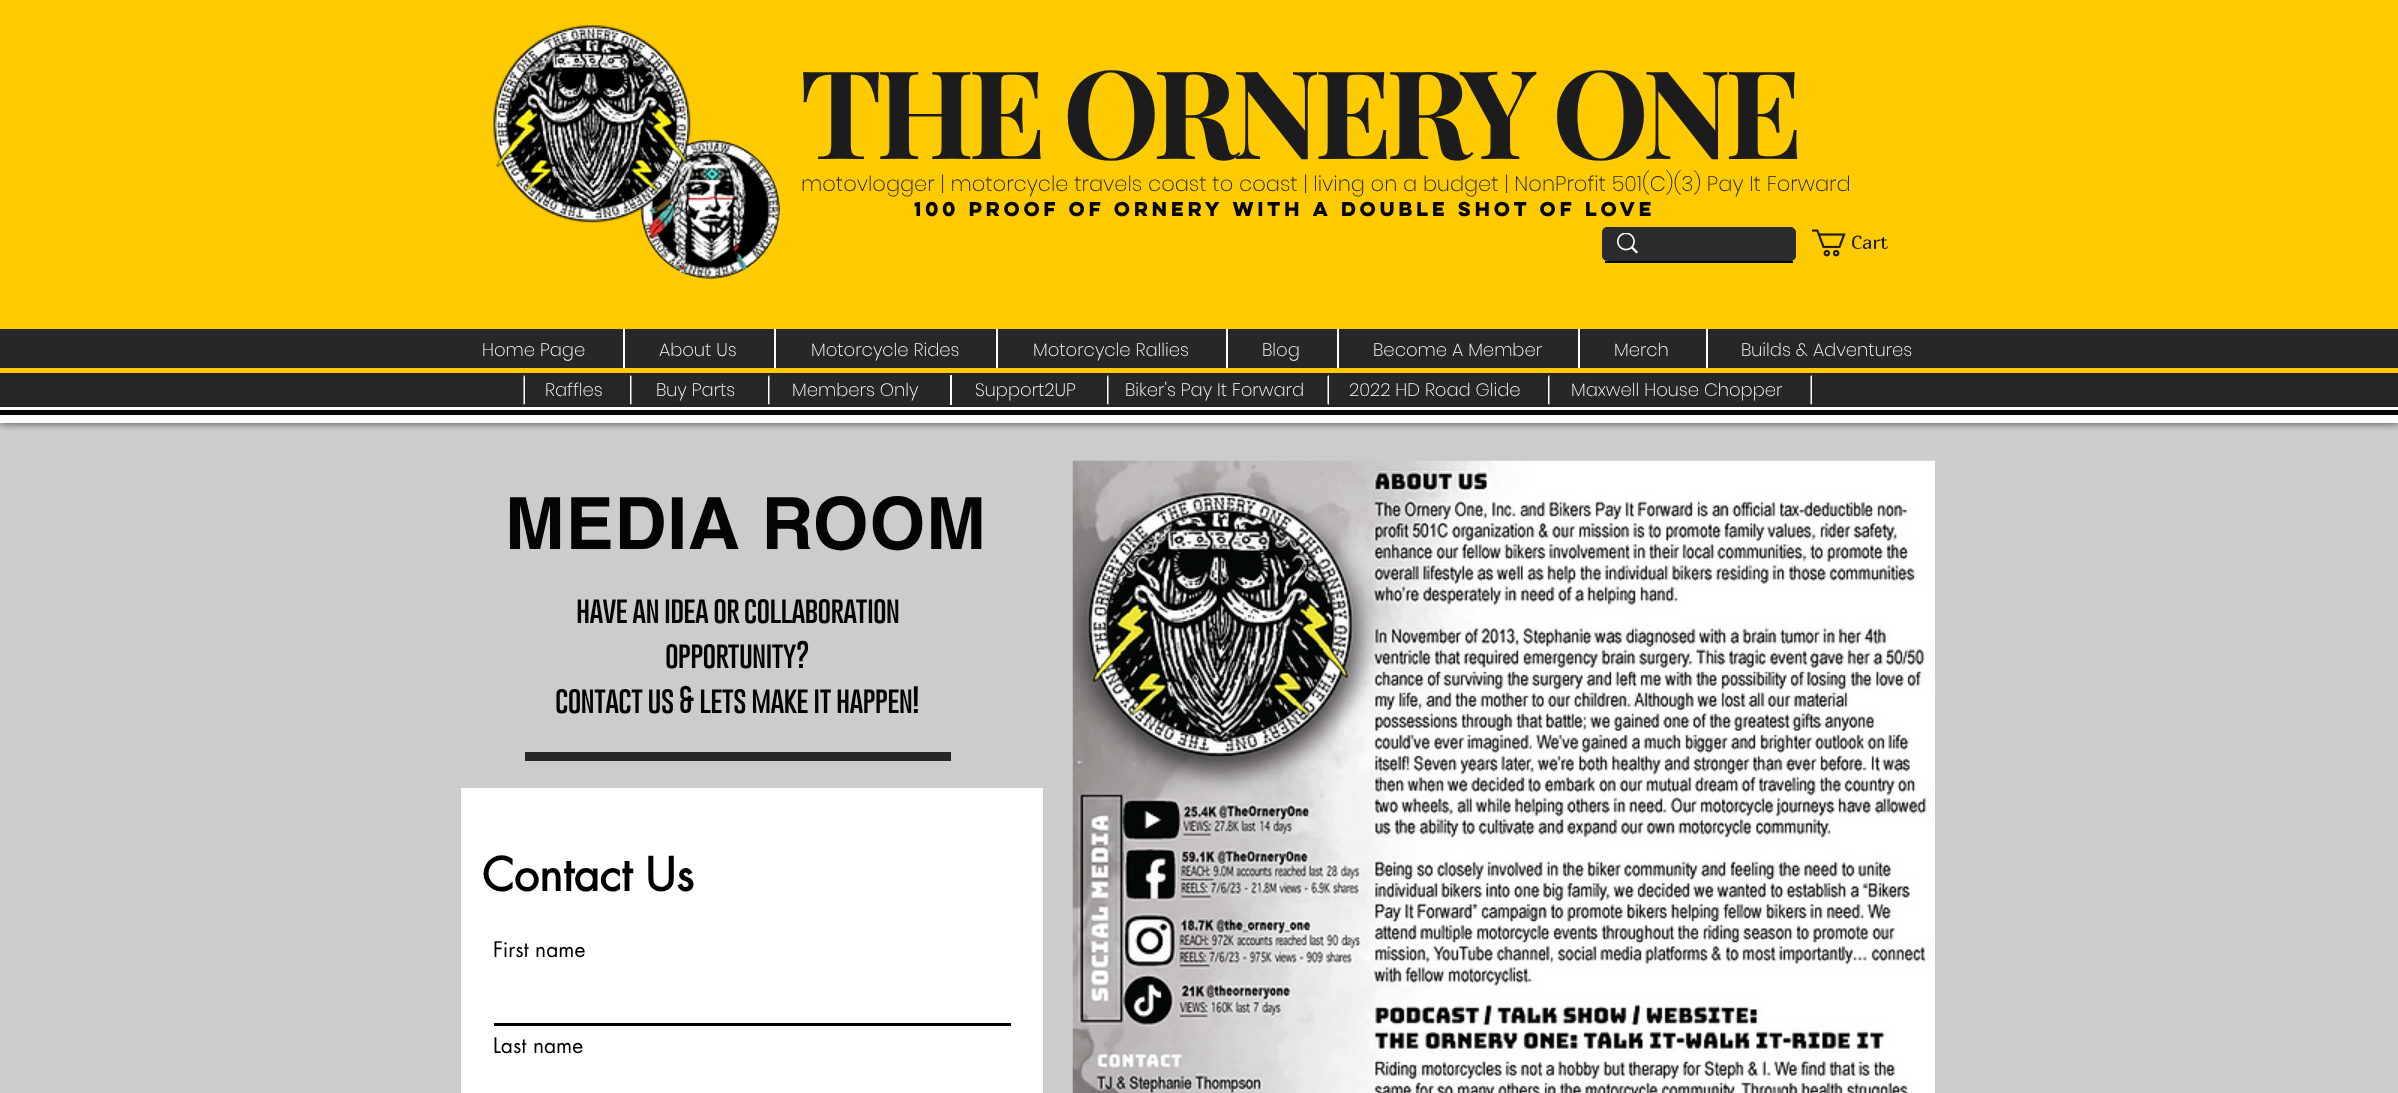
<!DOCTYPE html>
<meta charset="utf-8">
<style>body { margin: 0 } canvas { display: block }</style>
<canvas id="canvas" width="2398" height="1093"></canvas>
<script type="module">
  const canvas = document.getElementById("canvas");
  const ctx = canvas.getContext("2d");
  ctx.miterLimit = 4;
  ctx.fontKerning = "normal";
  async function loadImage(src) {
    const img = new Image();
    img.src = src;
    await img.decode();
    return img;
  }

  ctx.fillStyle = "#ffffff";
  ctx.fillRect(0, 0, 2398, 1093);
  ctx.fillStyle = "#cccccc";
  ctx.fillRect(0, 423, 2398, 670);
  ctx.save();
  ctx.beginPath();
  ctx.rect(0, 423, 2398, 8);
  ctx.clip();
  ctx.fillStyle = "rgba(0, 0, 0, 0.7)";
  ctx.filter = "blur(4px)";
  ctx.beginPath();
  ctx.rect(0, 0, 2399, 423);
  ctx.fill();
  ctx.filter = "none";
  ctx.restore();
  ctx.fillStyle = "#040407";
  ctx.fillRect(0, 410, 2398, 5);
  ctx.fillStyle = "#fecb00";
  ctx.fillRect(0, 0, 2398, 329);
  ctx.drawImage(await loadImage("img2.png"), 640, 139, 140, 140);
  ctx.drawImage(await loadImage("img1.png"), 493, 25, 198, 198);
  ctx.letterSpacing = "-6.2px";
  ctx.font = "bold 123px Playfair Display";
  ctx.fillStyle = "#1c1c1d";
  ctx.fillText("THE ORNERY ONE", 800, 159);
  ctx.letterSpacing = "0px";
  ctx.font = "200 21px Poppins";
  ctx.fillText("motovlogger | motorcycle travels coast to coast | living on a budget | NonProfit 501(C)(3) Pay It Forward", 801, 191);
  ctx.font = "bold 18px 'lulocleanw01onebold'";
  ctx.fillStyle = "#040407";
  ctx.fillText("100 proof of Ornery with a double shot of Love", 914, 216);
  ctx.fillStyle = "#000000";
  ctx.fillRect(1605, 261, 188, 2);
  ctx.fillStyle = "#2b2b2b";
  ctx.beginPath();
  ctx.moveTo(1602, 232);
  ctx.lineTo(1602, 256);
  ctx.bezierCurveTo(1602, 259, 1605, 261, 1608, 261);
  ctx.lineTo(1790, 261);
  ctx.bezierCurveTo(1793, 261, 1796, 259, 1796, 256);
  ctx.lineTo(1796, 232);
  ctx.bezierCurveTo(1796, 230, 1794, 228, 1792, 227);
  ctx.lineTo(1606, 227);
  ctx.bezierCurveTo(1603, 228, 1602, 230, 1602, 232);
  ctx.closePath();
  ctx.fill();
  ctx.drawImage(await loadImage("img3.png"), 1617, 233, 21, 21);
  ctx.drawImage(await loadImage("img4.png"), 1812, 229, 34, 28);
  ctx.font = "19px Marmelad";
  ctx.fillStyle = "#1c1c1d";
  ctx.fillText("Cart", 1851, 249);
  ctx.fillStyle = "#282626";
  ctx.fillRect(0, 329, 2398, 39);
  ctx.font = "200 18px Poppins";
  ctx.fillStyle = "#ffffff";
  ctx.fillText("Home Page", 482, 356);
  ctx.fillRect(623, 329, 2, 40);
  ctx.fillText("About Us", 659, 356);
  ctx.fillRect(774, 329, 2, 40);
  ctx.fillText("Motorcycle Rides", 811, 356);
  ctx.fillRect(996, 329, 2, 40);
  ctx.fillText("Motorcycle Rallies", 1033, 356);
  ctx.fillRect(1226, 329, 2, 40);
  ctx.fillText("Blog", 1262, 356);
  ctx.fillRect(1337, 329, 2, 40);
  ctx.fillText("Become A Member", 1373, 356);
  ctx.fillRect(1578, 329, 2, 40);
  ctx.fillText("Merch", 1614, 356);
  ctx.fillRect(1706, 329, 2, 40);
  ctx.fillText("Builds & Adventures", 1741, 356);
  ctx.fillStyle = "#fecb00";
  ctx.fillRect(0, 368, 2398, 5);
  ctx.fillStyle = "#282626";
  ctx.fillRect(0, 373, 2398, 32);
  ctx.fillStyle = "#ffffff";
  ctx.beginPath();
  ctx.moveTo(523.5, 405);
  ctx.lineTo(523.5, 375);
  ctx.lineTo(525, 376.5);
  ctx.lineTo(525, 403.5);
  ctx.closePath();
  ctx.fill();
  ctx.fillText("Raffles", 545, 396);
  ctx.beginPath();
  ctx.moveTo(769.5, 375);
  ctx.lineTo(769.5, 405);
  ctx.lineTo(768, 403.5);
  ctx.lineTo(768, 376.5);
  ctx.closePath();
  ctx.fill();
  ctx.beginPath();
  ctx.moveTo(630, 405);
  ctx.lineTo(630, 375);
  ctx.lineTo(631.5, 376.5);
  ctx.lineTo(631.5, 403.5);
  ctx.closePath();
  ctx.fill();
  ctx.fillText("Buy Parts", 656, 396);
  ctx.fillRect(950, 375, 2, 30);
  ctx.fillText("Members Only", 792, 396);
  ctx.beginPath();
  ctx.moveTo(1108.5, 375);
  ctx.lineTo(1108.5, 405);
  ctx.lineTo(1107, 403.5);
  ctx.lineTo(1107, 376.5);
  ctx.closePath();
  ctx.fill();
  ctx.fillText("Support2UP", 975, 396);
  ctx.beginPath();
  ctx.moveTo(1329, 375);
  ctx.lineTo(1329, 405);
  ctx.lineTo(1327.5, 403.5);
  ctx.lineTo(1327.5, 376.5);
  ctx.closePath();
  ctx.fill();
  ctx.fillText("Biker's Pay It Forward", 1125, 396);
  ctx.beginPath();
  ctx.moveTo(1549.5, 375);
  ctx.lineTo(1549.5, 405);
  ctx.lineTo(1548, 403.5);
  ctx.lineTo(1548, 376.5);
  ctx.closePath();
  ctx.fill();
  ctx.fillText("2022 HD Road Glide", 1349, 396);
  ctx.beginPath();
  ctx.moveTo(1812, 375);
  ctx.lineTo(1812, 405);
  ctx.lineTo(1810.5, 403.5);
  ctx.lineTo(1810.5, 376.5);
  ctx.closePath();
  ctx.fill();
  ctx.fillText("Maxwell House Chopper", 1571, 396);
  ctx.fillStyle = "#242323";
  ctx.fillRect(0, 405, 2398, 2);
  ctx.letterSpacing = "0.75px";
  ctx.font = "bold 72px helvetica";
  ctx.fillStyle = "#040407";
  ctx.fillText("MEDIA ROOM", 505, 549);
  ctx.drawImage(await loadImage("img5.png"), 1072, 460, 863, 633);
  ctx.letterSpacing = "0px";
  ctx.font = "bold 27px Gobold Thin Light";
  ctx.fillText("have an idea or collaboration", 576, 623);
  ctx.fillText("opportunity?", 665, 668);
  ctx.fillText("contact us & lets make it happen!", 555, 713);
  ctx.fillStyle = "#282626";
  ctx.fillRect(525, 752, 426, 9);
  ctx.fillStyle = "#ffffff";
  ctx.fillRect(461, 788, 582, 305);
  ctx.font = "bold 45px futura";
  ctx.fillStyle = "#000000";
  ctx.fillText("Contact Us", 482, 891);
  ctx.font = "21px futura";
  ctx.fillText("First name", 493, 957);
  ctx.fillRect(494, 1023, 517, 3);
  ctx.fillText("Last name", 493, 1053);
</script>
